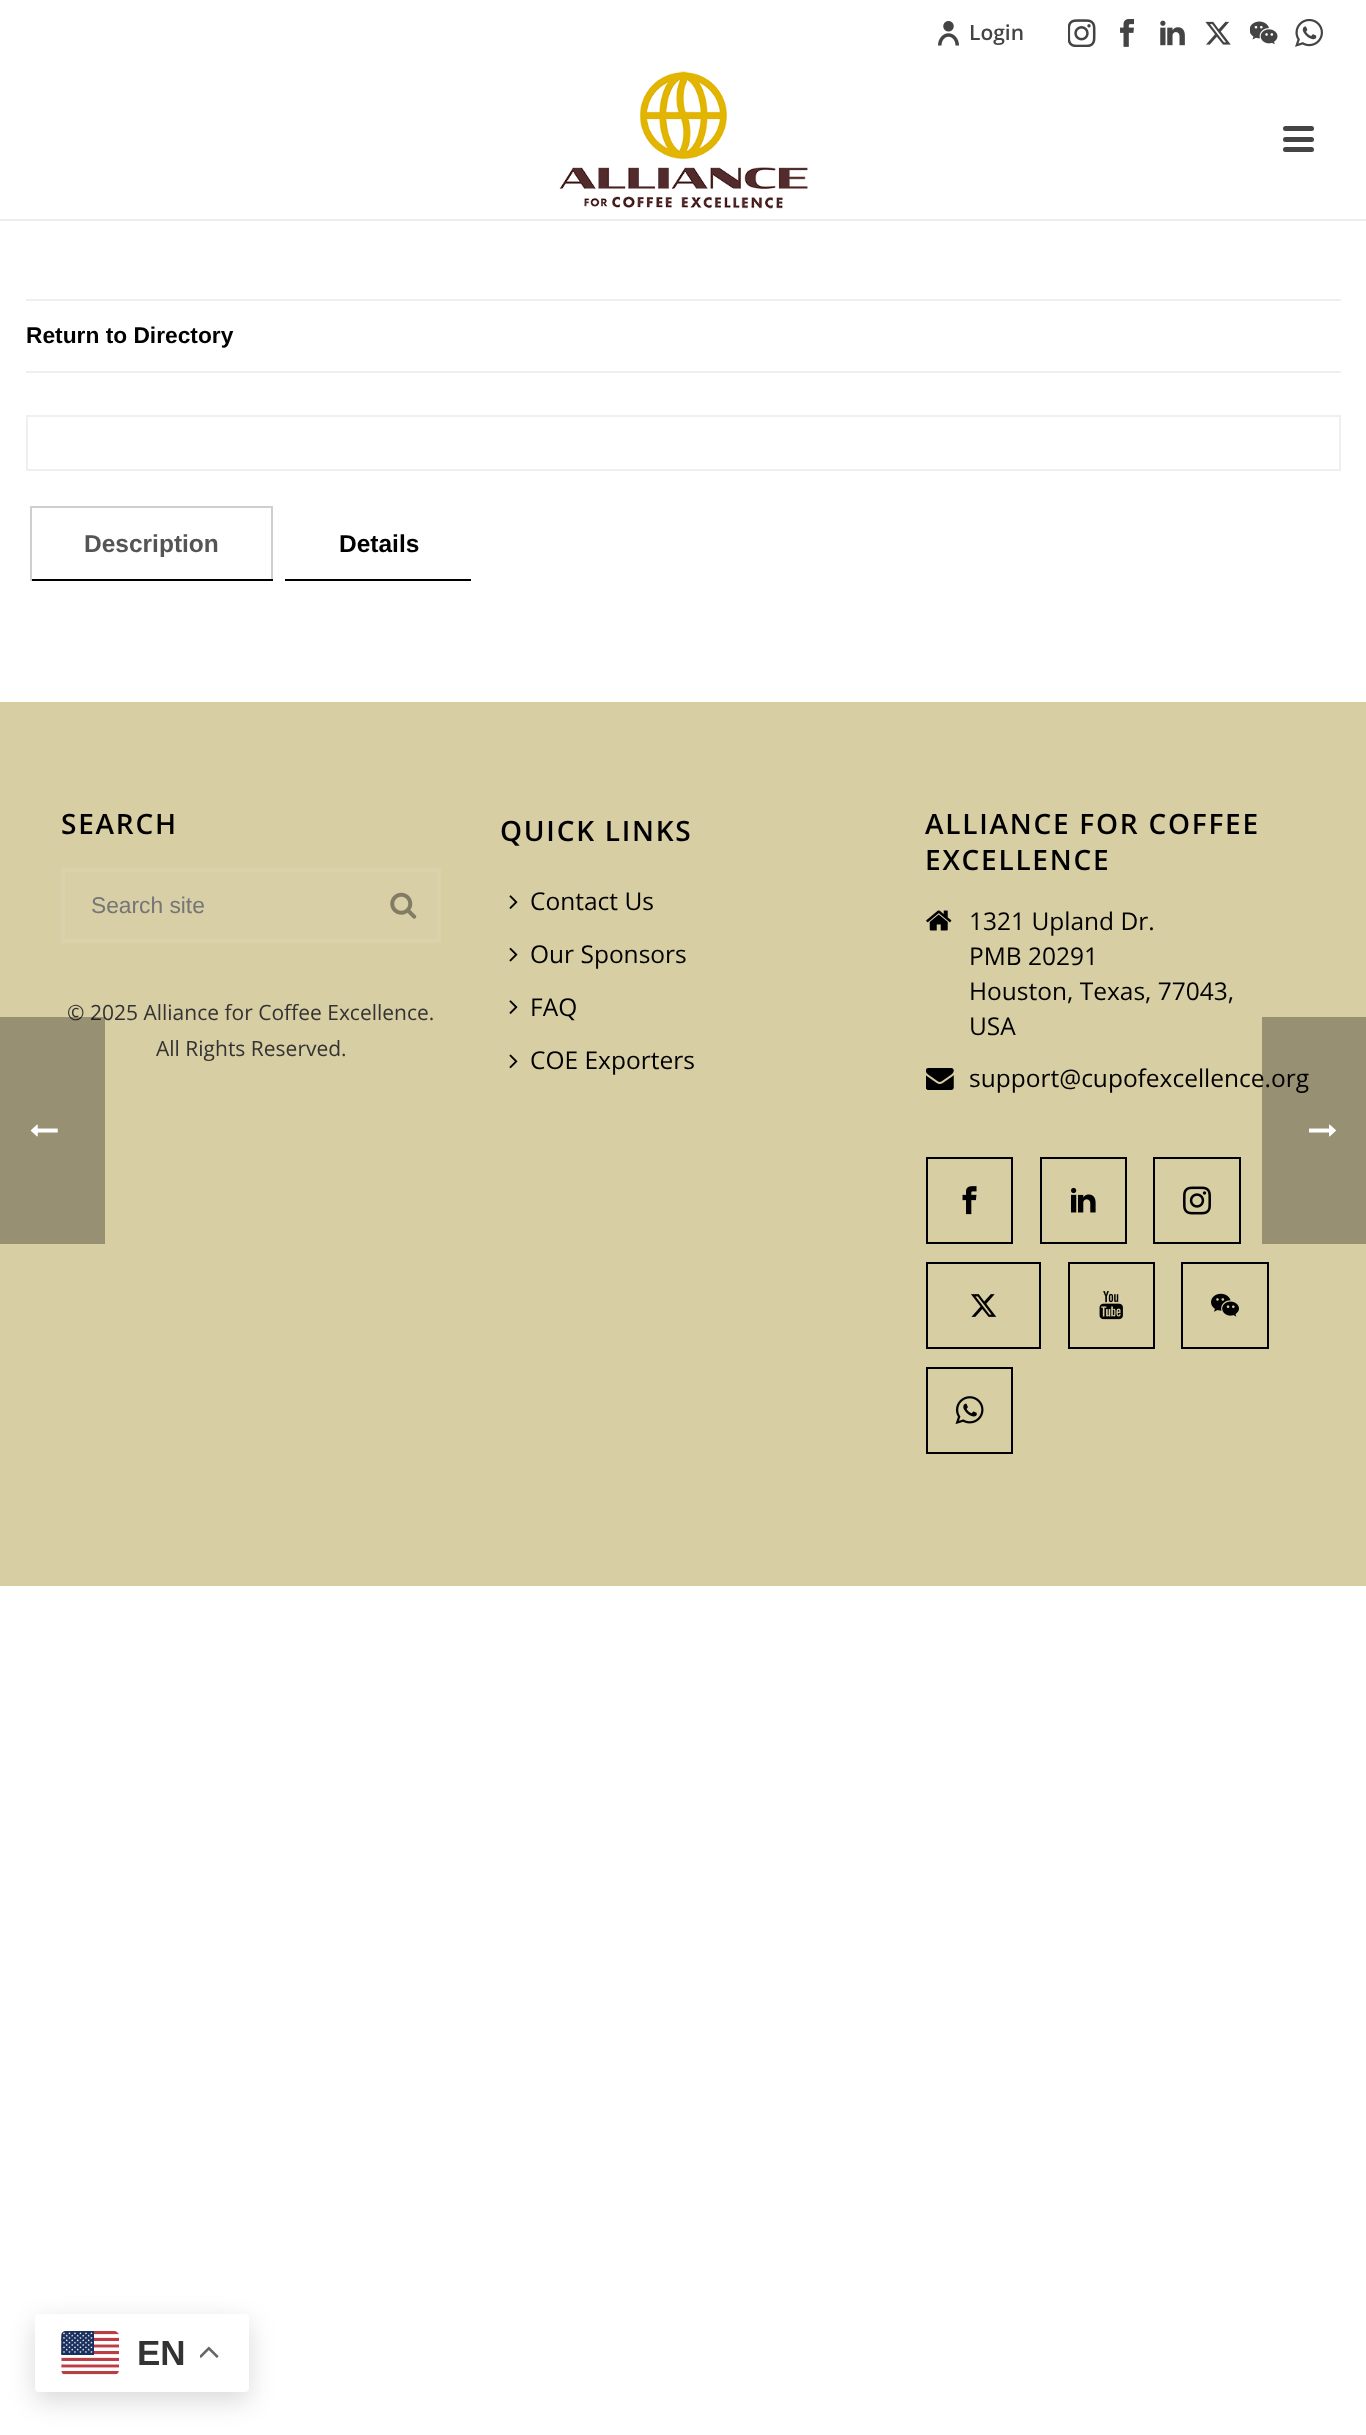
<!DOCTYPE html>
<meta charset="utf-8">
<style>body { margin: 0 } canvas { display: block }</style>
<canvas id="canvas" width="1366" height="2435"></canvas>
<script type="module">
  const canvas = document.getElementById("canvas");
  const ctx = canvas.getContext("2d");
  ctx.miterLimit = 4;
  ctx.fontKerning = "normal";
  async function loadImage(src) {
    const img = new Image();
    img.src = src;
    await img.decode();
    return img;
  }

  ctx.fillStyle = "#ffffff";
  ctx.fillRect(0, 0, 1366, 2435);
  ctx.fillStyle = "#ededed";
  ctx.fillRect(0, 219, 1366, 2);
  ctx.drawImage(await loadImage("img1.png"), 938, 21, 21, 25);
  ctx.font = "600 21px Open Sans";
  ctx.fillStyle = "#444444";
  ctx.fillText("Login", 969, 40);
  ctx.drawImage(await loadImage("img2.png"), 1068, 19, 28, 28);
  ctx.drawImage(await loadImage("img3.png"), 1120, 19, 15, 28);
  ctx.drawImage(await loadImage("img4.png"), 1160, 20, 25, 26);
  ctx.drawImage(await loadImage("img5.png"), 1205, 21, 26, 24);
  ctx.drawImage(await loadImage("img6.png"), 1250, 21, 28, 24);
  ctx.drawImage(await loadImage("img7.png"), 1295, 19, 28, 28);
  ctx.drawImage(await loadImage("img8.png"), 559, 71, 249, 138);
  ctx.beginPath();
  ctx.roundRect(1283, 126, 31, 5, 2.5);
  ctx.fill();
  ctx.beginPath();
  ctx.roundRect(1283, 137, 31, 5, 2.5);
  ctx.fill();
  ctx.beginPath();
  ctx.roundRect(1283, 147, 31, 5, 2.5);
  ctx.fill();
  ctx.fillStyle = "#efefef";
  ctx.fillRect(26, 299, 1315, 2);
  ctx.fillRect(26, 371, 1315, 2);
  ctx.font = "bold 22.75px Liberation Sans";
  ctx.fillStyle = "#000000";
  ctx.fillText("Return to Directory", 26, 343);
  ctx.strokeStyle = "#efefef";
  ctx.lineWidth = 2;
  ctx.strokeRect(27, 416, 1313, 54);
  ctx.fillStyle = "#cfcfcf";
  ctx.fillRect(30, 506, 243, 2);
  ctx.fillRect(271, 506, 2, 75);
  ctx.fillStyle = "#000000";
  ctx.fillRect(30, 579, 243, 2);
  ctx.fillStyle = "#cfcfcf";
  ctx.fillRect(30, 506, 2, 75);
  ctx.font = "bold 24.5px Liberation Sans";
  ctx.fillStyle = "#555555";
  ctx.fillText("Description", 84, 552);
  ctx.fillStyle = "#000000";
  ctx.fillRect(285, 579, 186, 2);
  ctx.fillText("Details", 339, 552);
  ctx.fillStyle = "#d8cea4";
  ctx.fillRect(0, 702, 1366, 884);
  ctx.letterSpacing = "1.75px";
  ctx.font = "600 28px Open Sans";
  ctx.fillStyle = "#000000";
  ctx.fillText("SEARCH", 61, 834);
  ctx.fillStyle = "#d9cfa7";
  ctx.beginPath();
  ctx.rect(63, 870, 376, 71);
  ctx.fill();
  ctx.strokeStyle = "#dbd1ab";
  ctx.lineWidth = 4;
  ctx.stroke();
  ctx.letterSpacing = "0px";
  ctx.font = "22.75px Liberation Sans";
  ctx.fillStyle = "#757575";
  ctx.fillText("Search site", 91, 913);
  ctx.drawImage(await loadImage("img9.png"), 390, 892, 27, 27);
  ctx.font = "21px Open Sans";
  ctx.fillStyle = "#333333";
  ctx.fillText("© 2025 Alliance for Coffee Excellence.", 67, 1020);
  ctx.fillText("All Rights Reserved.", 156, 1056);
  ctx.letterSpacing = "1.75px";
  ctx.font = "600 28px Open Sans";
  ctx.fillStyle = "#000000";
  ctx.fillText("QUICK LINKS", 500, 841);
  ctx.drawImage(await loadImage("img10.png"), 509, 895, 9, 14);
  ctx.letterSpacing = "0px";
  ctx.font = "24.5px Open Sans";
  ctx.fillText("Contact Us", 530, 910);
  ctx.drawImage(await loadImage("img11.png"), 509, 947, 9, 15);
  ctx.fillText("Our Sponsors", 530, 963);
  ctx.drawImage(await loadImage("img10.png"), 509, 1000, 9, 14);
  ctx.fillText("FAQ", 530, 1016);
  ctx.drawImage(await loadImage("img12.png"), 509, 1054, 9, 15);
  ctx.fillText("COE Exporters", 530, 1069);
  ctx.letterSpacing = "1.75px";
  ctx.font = "600 28px Open Sans";
  ctx.fillText("ALLIANCE FOR COFFEE", 925, 834);
  ctx.fillText("EXCELLENCE", 925, 870);
  ctx.drawImage(await loadImage("img13.png"), 926, 910, 26, 21);
  ctx.letterSpacing = "0px";
  ctx.font = "24.5px Open Sans";
  ctx.fillText("1321 Upland Dr.", 969, 930);
  ctx.fillText("PMB 20291", 969, 965);
  ctx.fillText("Houston, Texas, 77043,", 969, 1000);
  ctx.fillText("USA", 969, 1035);
  ctx.drawImage(await loadImage("img14.png"), 926, 1068, 28, 22);
  ctx.fillText("support@cupofexcellence.org", 969, 1087);
  ctx.strokeStyle = "#000000";
  ctx.lineWidth = 2;
  ctx.strokeRect(927, 1158, 85, 85);
  ctx.drawImage(await loadImage("img15.png"), 962, 1186, 15, 29);
  ctx.strokeRect(1041, 1158, 85, 85);
  ctx.drawImage(await loadImage("img16.png"), 1071, 1187, 25, 26);
  ctx.strokeRect(1154, 1158, 86, 85);
  ctx.drawImage(await loadImage("img17.png"), 1183, 1186, 28, 29);
  ctx.strokeRect(927, 1263, 113, 85);
  ctx.drawImage(await loadImage("img18.png"), 971, 1294, 26, 23);
  ctx.strokeRect(1069, 1263, 85, 85);
  ctx.drawImage(await loadImage("img19.png"), 1099, 1291, 24, 29);
  ctx.strokeRect(1182, 1263, 86, 85);
  ctx.drawImage(await loadImage("img20.png"), 1211, 1293, 28, 24);
  ctx.strokeRect(927, 1368, 85, 85);
  ctx.drawImage(await loadImage("img21.png"), 955, 1396, 29, 29);
  ctx.fillStyle = "rgba(0, 0, 0, 0.3)";
  ctx.fillRect(0, 1017, 105, 227);
  ctx.drawImage(await loadImage("img22.png"), 30, 1124, 28, 13);
  ctx.fillRect(1262, 1017, 104, 227);
  ctx.drawImage(await loadImage("img23.png"), 1309, 1124, 27, 13);
  ctx.fillStyle = "rgba(0, 0, 0, 0.15)";
  ctx.filter = "blur(13px)";
  ctx.beginPath();
  ctx.roundRect(35, 2322, 214, 79, 4);
  ctx.fill();
  ctx.filter = "none";
  ctx.fillStyle = "#ffffff";
  ctx.beginPath();
  ctx.roundRect(35, 2314, 214, 78, 4);
  ctx.fill();
  ctx.drawImage(await loadImage("img24.png"), 61, 2331, 58, 44);
  ctx.font = "bold 35px Liberation Sans";
  ctx.fillStyle = "#333333";
  ctx.fillText("EN", 137, 2365);
  ctx.drawImage(await loadImage("img25.png"), 200, 2346, 19, 12);
</script>
